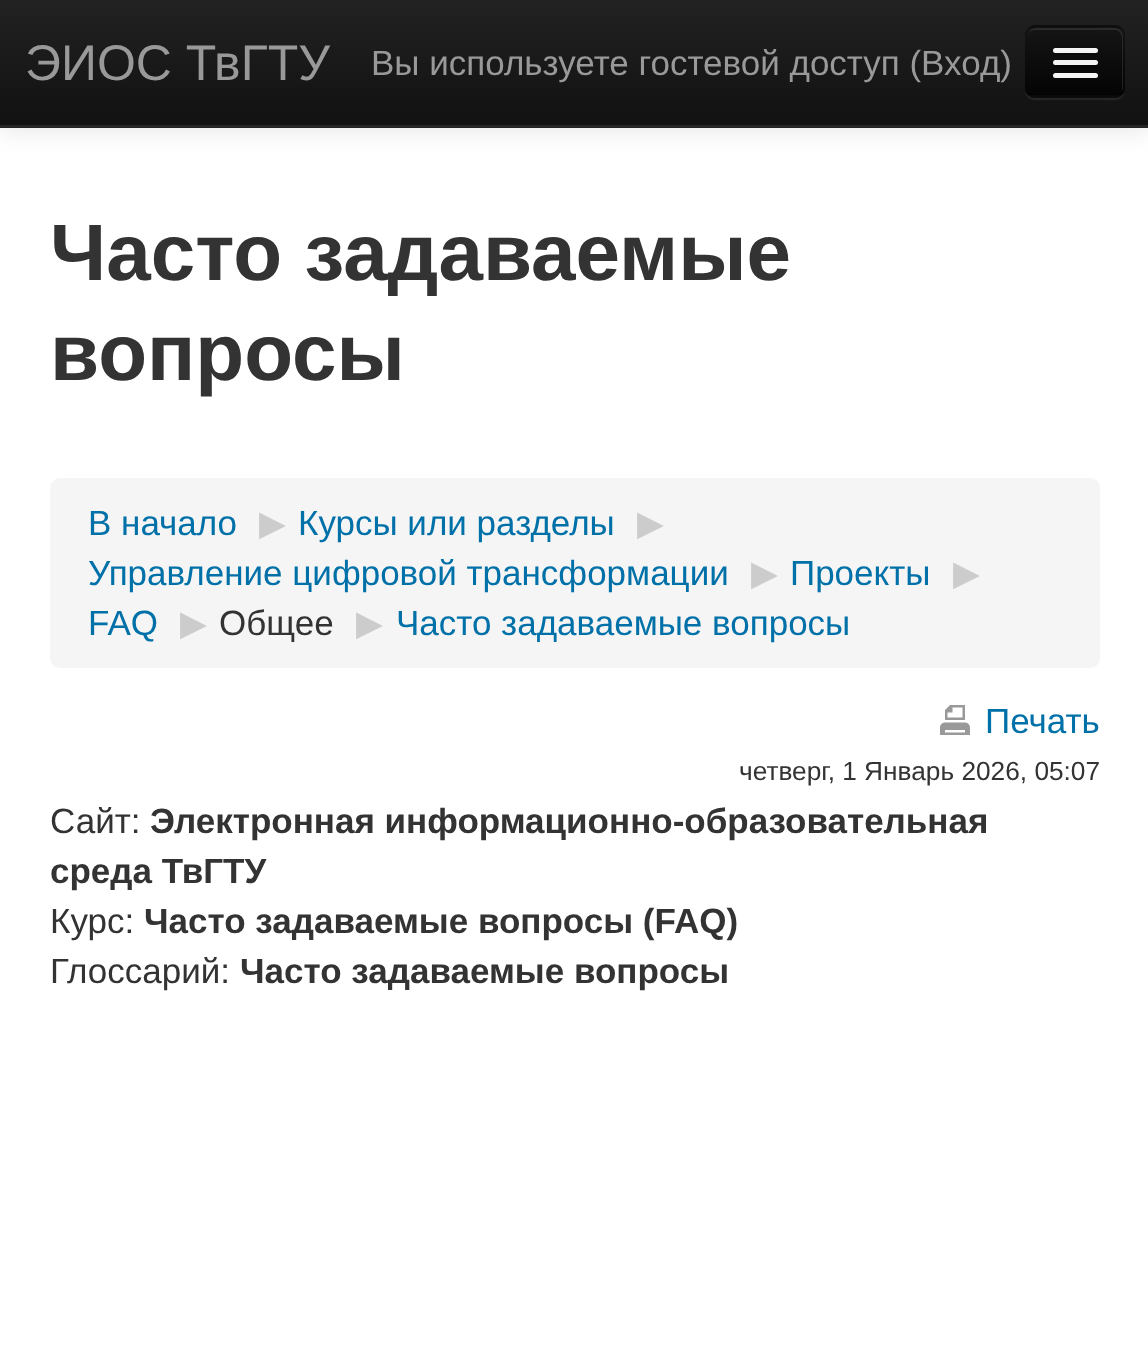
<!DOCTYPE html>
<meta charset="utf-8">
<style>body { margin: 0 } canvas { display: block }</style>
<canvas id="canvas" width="1148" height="1359"></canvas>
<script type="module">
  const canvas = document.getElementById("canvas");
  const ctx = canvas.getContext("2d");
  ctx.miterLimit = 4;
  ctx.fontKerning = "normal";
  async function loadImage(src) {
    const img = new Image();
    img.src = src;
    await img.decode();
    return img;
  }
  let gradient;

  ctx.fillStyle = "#ffffff";
  ctx.fillRect(0, 0, 1148, 1359);
  ctx.fillStyle = "rgba(0, 0, 0, 0.1)";
  ctx.filter = "blur(12.5px)";
  ctx.beginPath();
  ctx.rect(0, 3, 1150, 127);
  ctx.fill();
  ctx.filter = "none";
  gradient = ctx.createLinearGradient(575, 0, 575, 125);
  gradient.addColorStop(0, "#222222");
  gradient.addColorStop(1, "#111111");
  ctx.fillStyle = gradient;
  ctx.fillRect(0, 0, 1148, 125);
  ctx.fillStyle = "#252525";
  ctx.fillRect(0, 125, 1148, 3);
  ctx.font = "50px Liberation Sans";
  ctx.fillStyle = "#999999";
  ctx.fillText("ЭИОС ТвГТУ", 25, 80);
  ctx.font = "35px Liberation Sans";
  ctx.fillText("Вы используете гостевой доступ (Вход)", 371, 75);
  ctx.fillStyle = "#262626";
  ctx.beginPath();
  ctx.moveTo(1025, 88);
  ctx.bezierCurveTo(1025, 103, 1036, 100, 1048, 100);
  ctx.lineTo(1102, 100);
  ctx.bezierCurveTo(1114, 100, 1125, 103, 1125, 88);
  ctx.bezierCurveTo(1125, 93, 1121, 98, 1115, 98);
  ctx.lineTo(1035, 98);
  ctx.bezierCurveTo(1029, 98, 1025, 93, 1025, 88);
  ctx.closePath();
  ctx.fill();
  ctx.fillStyle = "#0e0e0e";
  ctx.beginPath();
  ctx.roundRect(1025, 25, 100, 73, 10);
  ctx.fill();
  ctx.save();
  ctx.beginPath();
  ctx.roundRect(1025, 25, 100, 73, 10);
  ctx.clip();
  gradient = ctx.createLinearGradient(1075, 27, 1075, 95);
  gradient.addColorStop(0, "#151515");
  gradient.addColorStop(1, "#040404");
  ctx.fillStyle = gradient;
  ctx.fillRect(1025, 28, 100, 67);
  ctx.restore();
  ctx.fillStyle = "rgba(255, 255, 255, 0.1)";
  ctx.beginPath();
  ctx.moveTo(1035, 30);
  ctx.lineTo(1116, 30);
  ctx.bezierCurveTo(1124, 32, 1122, 42, 1122, 47);
  ctx.lineTo(1122, 91);
  ctx.bezierCurveTo(1124, 87, 1123, 82, 1123, 78);
  ctx.lineTo(1123, 62);
  ctx.bezierCurveTo(1123, 23, 1128, 28, 1089, 28);
  ctx.lineTo(1049, 28);
  ctx.bezierCurveTo(1039, 28, 1028, 25, 1028, 38);
  ctx.bezierCurveTo(1028, 33, 1031, 30, 1035, 30);
  ctx.closePath();
  ctx.fill();
  ctx.beginPath();
  ctx.moveTo(1121, 93.5);
  ctx.bezierCurveTo(1119.5, 95.5, 1117.5, 96, 1115, 96);
  ctx.lineTo(1035, 96);
  ctx.bezierCurveTo(1032.5, 96, 1030.5, 95.5, 1029, 93.5);
  ctx.strokeStyle = "rgba(0, 0, 0, 0.25)";
  ctx.lineWidth = 2.5;
  ctx.stroke();
  ctx.fillStyle = "#0b0b0b";
  ctx.beginPath();
  ctx.moveTo(1053, 52);
  ctx.bezierCurveTo(1051, 57, 1061, 55, 1062, 55);
  ctx.lineTo(1089, 55);
  ctx.bezierCurveTo(1090, 55, 1097, 57, 1098, 53);
  ctx.lineTo(1097, 51);
  ctx.lineTo(1095, 52);
  ctx.lineTo(1055, 52);
  ctx.closePath();
  ctx.fill();
  ctx.fillStyle = "#f5f5f5";
  ctx.beginPath();
  ctx.roundRect(1053, 48, 45, 5, 2.5);
  ctx.fill();
  ctx.fillStyle = "#080808";
  ctx.beginPath();
  ctx.moveTo(1053, 64);
  ctx.bezierCurveTo(1051, 69, 1062, 68, 1062, 68);
  ctx.lineTo(1089, 68);
  ctx.bezierCurveTo(1090, 68, 1097, 70, 1098, 66);
  ctx.lineTo(1097, 64);
  ctx.lineTo(1095, 65);
  ctx.bezierCurveTo(1092, 65, 1055, 66, 1053, 64);
  ctx.closePath();
  ctx.fill();
  ctx.fillStyle = "#f5f5f5";
  ctx.beginPath();
  ctx.roundRect(1053, 60, 45, 5, 2.5);
  ctx.fill();
  ctx.beginPath();
  ctx.roundRect(1053, 73, 45, 5, 2.5);
  ctx.fill();
  ctx.font = "bold 80px Liberation Sans";
  ctx.fillStyle = "#333333";
  ctx.fillText("Часто задаваемые", 50, 280);
  ctx.fillText("вопросы", 50, 380);
  ctx.fillStyle = "#f5f5f5";
  ctx.beginPath();
  ctx.roundRect(50, 478, 1050, 190, 10);
  ctx.fill();
  ctx.font = "35px Liberation Sans";
  ctx.fillStyle = "#0070a8";
  ctx.fillText("В начало", 88, 535);
  ctx.font = "35px DejaVu Sans";
  ctx.fillStyle = "#cccccc";
  ctx.fillText("▶", 259, 535);
  ctx.font = "35px Liberation Sans";
  ctx.fillStyle = "#0070a8";
  ctx.fillText("Курсы или разделы", 298, 535);
  ctx.font = "35px DejaVu Sans";
  ctx.fillStyle = "#cccccc";
  ctx.fillText("▶", 637, 535);
  ctx.font = "35px Liberation Sans";
  ctx.fillStyle = "#0070a8";
  ctx.fillText("Управление цифровой трансформации", 88, 585);
  ctx.font = "35px DejaVu Sans";
  ctx.fillStyle = "#cccccc";
  ctx.fillText("▶", 751, 585);
  ctx.font = "35px Liberation Sans";
  ctx.fillStyle = "#0070a8";
  ctx.fillText("Проекты", 790, 585);
  ctx.font = "35px DejaVu Sans";
  ctx.fillStyle = "#cccccc";
  ctx.fillText("▶", 953, 585);
  ctx.font = "35px Liberation Sans";
  ctx.fillStyle = "#0070a8";
  ctx.fillText("FAQ", 88, 635);
  ctx.font = "35px DejaVu Sans";
  ctx.fillStyle = "#cccccc";
  ctx.fillText("▶", 180, 635);
  ctx.font = "35px Liberation Sans";
  ctx.fillStyle = "#333333";
  ctx.fillText("Общее", 219, 635);
  ctx.font = "35px DejaVu Sans";
  ctx.fillStyle = "#cccccc";
  ctx.fillText("▶", 356, 635);
  ctx.font = "35px Liberation Sans";
  ctx.fillStyle = "#0070a8";
  ctx.fillText("Часто задаваемые вопросы", 396, 635);
  ctx.drawImage(await loadImage("img1.png"), 940, 705, 30, 30);
  ctx.fillText("Печать", 985, 733);
  ctx.font = "26.25px Liberation Sans";
  ctx.fillStyle = "#333333";
  ctx.fillText("четверг, 1 Январь 2026, 05:07", 739, 780);
  ctx.font = "35px Liberation Sans";
  ctx.fillText("Сайт:", 50, 833);
  ctx.font = "bold 35px Liberation Sans";
  ctx.fillText("Электронная информационно-образовательная", 150, 833);
  ctx.fillText("среда ТвГТУ", 50, 883);
  ctx.font = "35px Liberation Sans";
  ctx.fillText("Курс:", 50, 933);
  ctx.font = "bold 35px Liberation Sans";
  ctx.fillText("Часто задаваемые вопросы (FAQ)", 144, 933);
  ctx.font = "35px Liberation Sans";
  ctx.fillText("Глоссарий:", 50, 983);
  ctx.font = "bold 35px Liberation Sans";
  ctx.fillText("Часто задаваемые вопросы", 240, 983);
</script>
